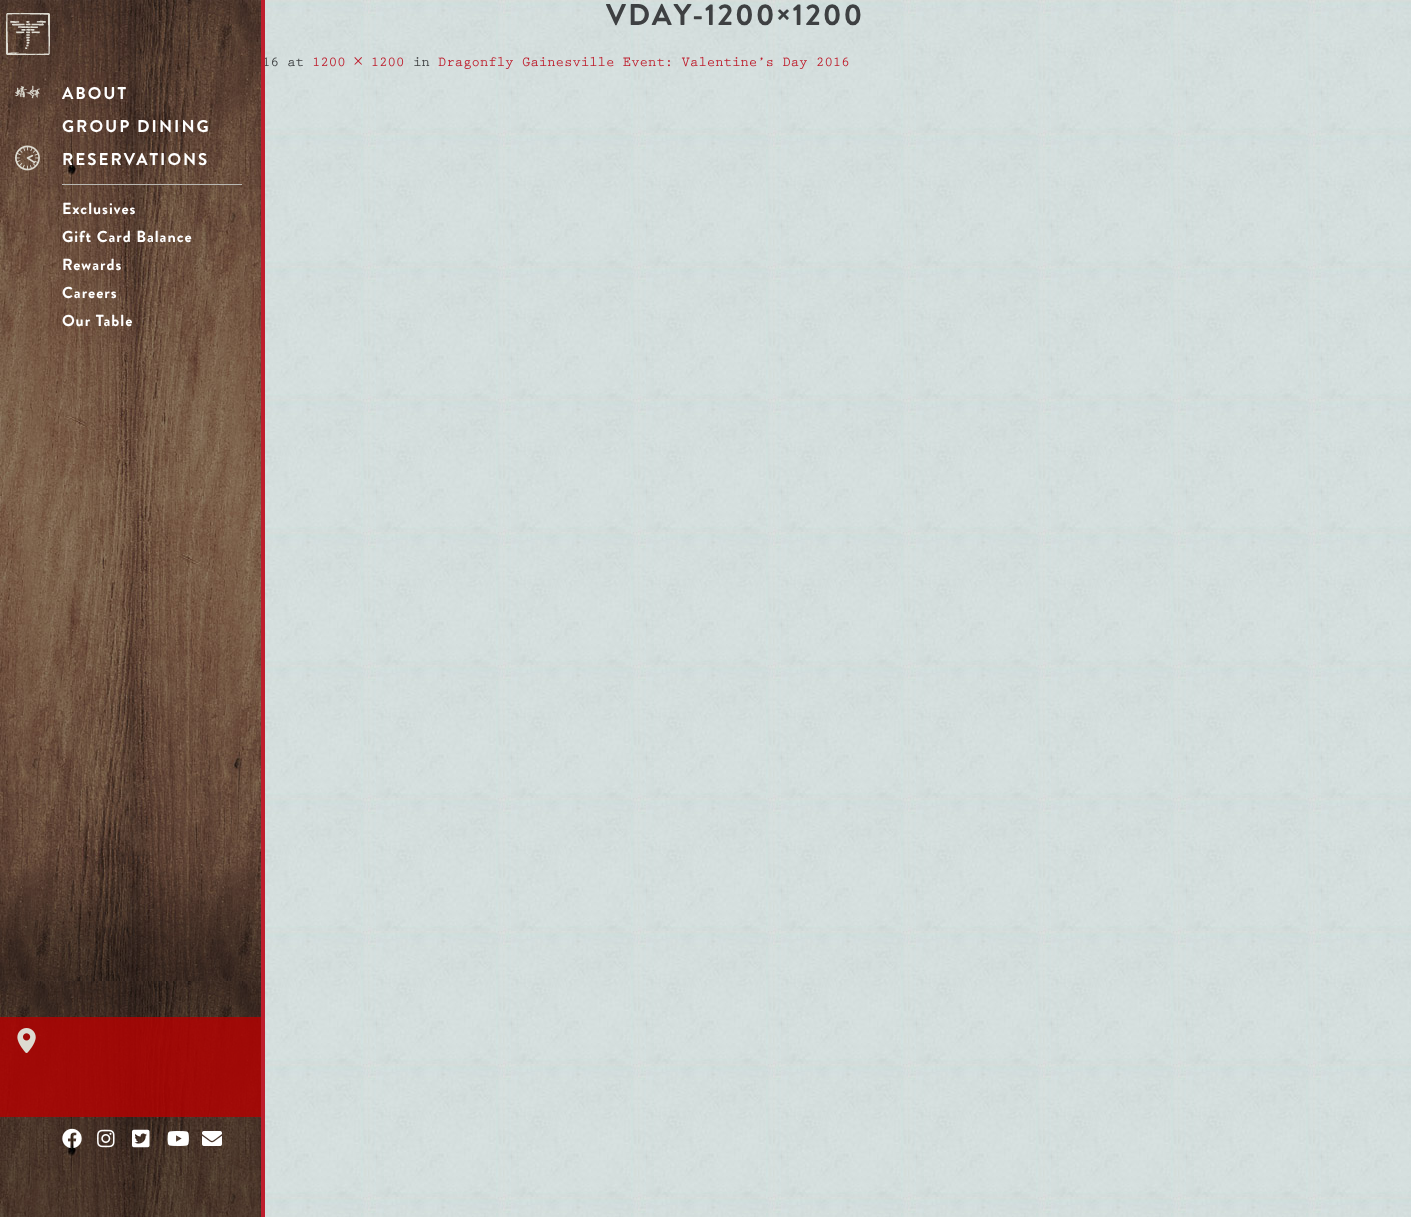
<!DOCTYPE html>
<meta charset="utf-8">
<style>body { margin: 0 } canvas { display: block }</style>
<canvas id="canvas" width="1411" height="1217"></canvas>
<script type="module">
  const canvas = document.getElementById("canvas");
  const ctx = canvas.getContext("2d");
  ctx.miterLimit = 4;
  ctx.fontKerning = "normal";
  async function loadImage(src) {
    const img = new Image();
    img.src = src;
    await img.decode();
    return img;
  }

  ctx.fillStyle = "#ffffff";
  ctx.fillRect(0, 0, 1411, 1217);
  ctx.drawImage(await loadImage("img1.png"), 265, 0, 1146, 1217);
  ctx.letterSpacing = "2px";
  ctx.font = "bold 30px Brandon Grotesque";
  ctx.fillStyle = "#3e4042";
  ctx.fillText("VDAY-1200×1200", 606, 25);
  ctx.letterSpacing = "0px";
  ctx.font = "bold 14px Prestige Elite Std";
  ctx.fillText("16 at", 262, 66);
  ctx.fillStyle = "#be1e2d";
  ctx.fillText("1200 × 1200", 312, 66);
  ctx.fillStyle = "#3e4042";
  ctx.fillText("in", 413, 66);
  ctx.fillStyle = "#be1e2d";
  ctx.fillText("Dragonfly Gainesville Event: Valentine’s Day 2016", 438, 66);
  ctx.drawImage(await loadImage("img2.png"), 0, 0, 261, 1217);
  ctx.fillRect(261, 0, 4, 1217);
  ctx.drawImage(await loadImage("img3.png"), 6, 13, 44, 42);
  ctx.fillStyle = "#b9b8b3";
  ctx.fillRect(62, 184, 180, 1);
  ctx.drawImage(await loadImage("img4.png"), 15, 85, 25, 14);
  ctx.letterSpacing = "2px";
  ctx.font = "bold 17px Brandon Grotesque";
  ctx.fillStyle = "#ffffff";
  ctx.fillText("ABOUT", 62, 99);
  ctx.fillText("GROUP DINING", 62, 132);
  ctx.drawImage(await loadImage("img5.png"), 15, 145, 25, 26);
  ctx.fillText("RESERVATIONS", 62, 165);
  ctx.letterSpacing = "1px";
  ctx.font = "bold 16px Brandon Grotesque";
  ctx.fillText("Exclusives", 62, 214);
  ctx.fillText("Gift Card Balance", 62, 242);
  ctx.fillText("Rewards", 62, 270);
  ctx.fillText("Careers", 62, 298);
  ctx.fillText("Our Table", 62, 326);
  ctx.fillStyle = "rgba(176, 4, 2, 0.86)";
  ctx.fillRect(0, 1017, 261, 100);
  ctx.drawImage(await loadImage("img6.png"), 17, 1028, 19, 25);
  ctx.drawImage(await loadImage("img7.png"), 62, 1128, 20, 20);
  ctx.drawImage(await loadImage("img8.png"), 97, 1129, 18, 19);
  ctx.drawImage(await loadImage("img9.png"), 132, 1129, 18, 19);
  ctx.drawImage(await loadImage("img10.png"), 167, 1131, 22, 15);
  ctx.drawImage(await loadImage("img11.png"), 202, 1131, 20, 15);
</script>
